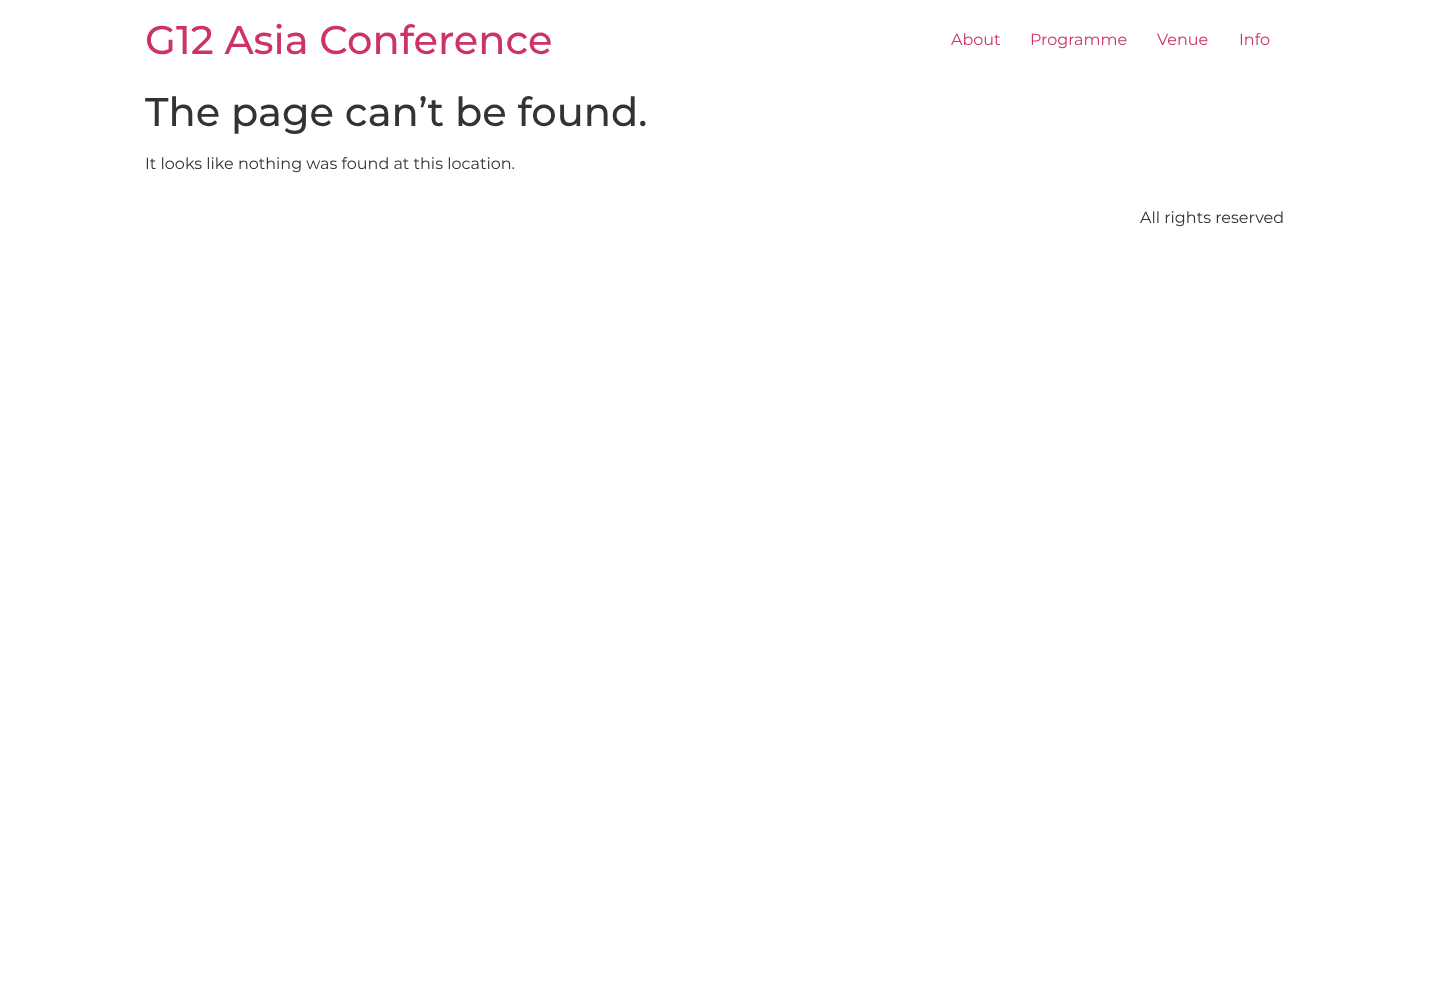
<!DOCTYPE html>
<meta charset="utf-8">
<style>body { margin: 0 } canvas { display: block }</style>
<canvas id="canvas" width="1429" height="996"></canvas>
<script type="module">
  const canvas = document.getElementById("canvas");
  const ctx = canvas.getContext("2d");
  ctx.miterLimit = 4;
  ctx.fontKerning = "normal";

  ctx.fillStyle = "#ffffff";
  ctx.fillRect(0, 0, 1429, 996);
  ctx.font = "500 40px Montserrat";
  ctx.fillStyle = "#cc3366";
  ctx.fillText("G12 Asia Conference", 145, 54);
  ctx.font = "16px Montserrat";
  ctx.fillText("About", 951, 45);
  ctx.fillText("Programme", 1030, 45);
  ctx.fillText("Venue", 1157, 45);
  ctx.fillText("Info", 1239, 45);
  ctx.font = "500 40px Montserrat";
  ctx.fillStyle = "#333333";
  ctx.fillText("The page can’t be found.", 145, 126);
  ctx.font = "16px Montserrat";
  ctx.fillText("It looks like nothing was found at this location.", 145, 169);
  ctx.fillText("All rights reserved", 1140, 223);
</script>
